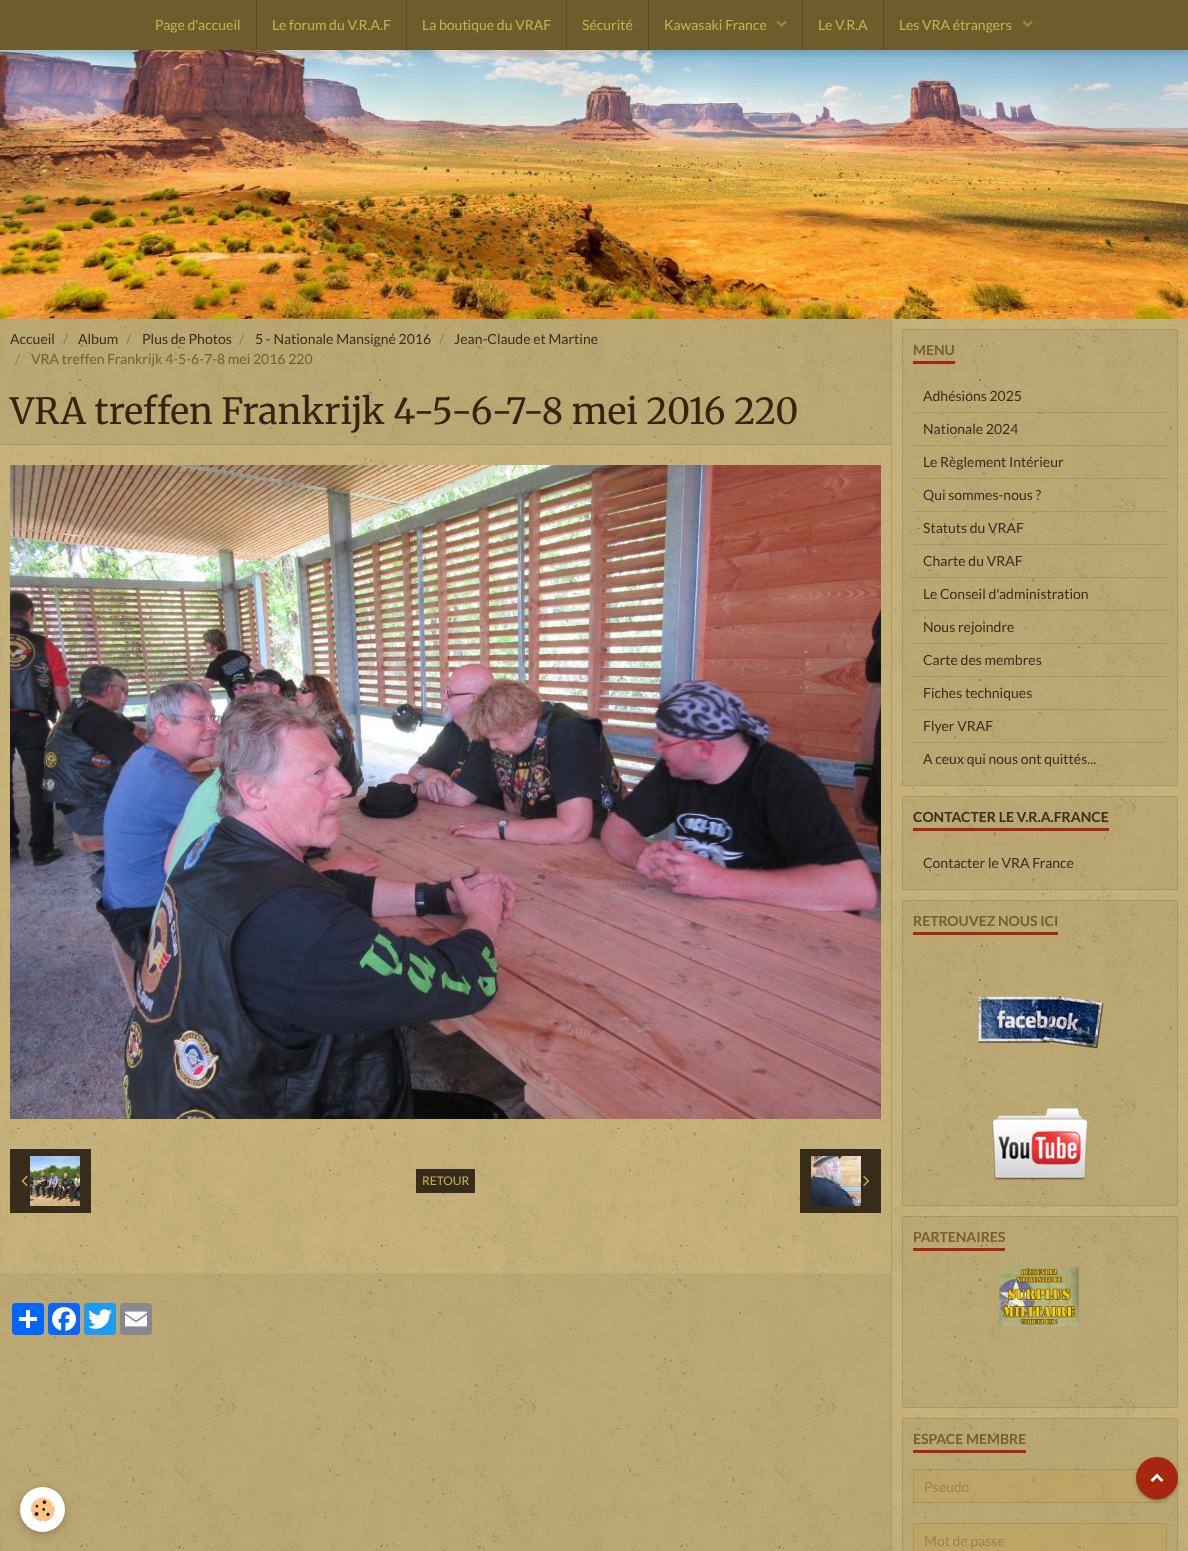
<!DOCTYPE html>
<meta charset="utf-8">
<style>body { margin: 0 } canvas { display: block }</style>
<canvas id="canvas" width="1188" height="1551"></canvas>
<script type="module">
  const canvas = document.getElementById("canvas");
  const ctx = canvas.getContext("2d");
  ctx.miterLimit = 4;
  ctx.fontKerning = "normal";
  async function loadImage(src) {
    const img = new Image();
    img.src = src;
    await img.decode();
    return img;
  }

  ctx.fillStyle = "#cbb67d";
  ctx.fillRect(0, 0, 1188, 1551);
  ctx.drawImage(await loadImage("img1.png"), 0, 319, 1188, 1232);
  ctx.drawImage(await loadImage("img3.png"), 0, 50, 1188, 269);
  ctx.fillStyle = "rgba(0, 0, 0, 0.1)";
  ctx.filter = "blur(2.5px)";
  ctx.beginPath();
  ctx.rect(0, 5, 1188, 50);
  ctx.fill();
  ctx.filter = "none";
  ctx.fillStyle = "#6e5c2a";
  ctx.fillRect(0, 0, 1188, 50);
  ctx.fillStyle = "#584a22";
  ctx.fillRect(256, 0, 1, 50);
  ctx.font = "14px Lato";
  ctx.fillStyle = "#c7b257";
  ctx.fillText("Page d'accueil", 155, 30);
  ctx.fillStyle = "#584a22";
  ctx.fillRect(406, 0, 1, 50);
  ctx.fillStyle = "#c7b257";
  ctx.fillText("Le forum du V.R.A.F", 272, 30);
  ctx.fillStyle = "#584a22";
  ctx.fillRect(566, 0, 1, 50);
  ctx.fillStyle = "#c7b257";
  ctx.fillText("La boutique du VRAF", 422, 30);
  ctx.fillStyle = "#584a22";
  ctx.fillRect(648, 0, 1, 50);
  ctx.fillStyle = "#c7b257";
  ctx.fillText("Sécurité", 582, 30);
  ctx.fillStyle = "#584a22";
  ctx.fillRect(802, 0, 1, 50);
  ctx.fillStyle = "#c7b257";
  ctx.fillText("Kawasaki France", 664, 30);
  ctx.drawImage(await loadImage("img2.png"), 776, 20, 11, 7);
  ctx.fillStyle = "#584a22";
  ctx.fillRect(883, 0, 1, 50);
  ctx.fillStyle = "#c7b257";
  ctx.fillText("Le V.R.A", 818, 30);
  ctx.fillText("Les VRA étrangers", 899, 30);
  ctx.drawImage(await loadImage("img2.png"), 1022, 20, 11, 7);
  ctx.fillStyle = "rgba(0, 0, 0, 0.05)";
  ctx.fillRect(0, 319, 891, 60);
  ctx.fillStyle = "#3a2d1a";
  ctx.fillText("Accueil", 10, 344);
  ctx.fillStyle = "#897543";
  ctx.fillText("/", 63, 344);
  ctx.fillStyle = "#3a2d1a";
  ctx.fillText("Album", 78, 344);
  ctx.fillStyle = "#897543";
  ctx.fillText("/", 126, 344);
  ctx.fillStyle = "#3a2d1a";
  ctx.fillText("Plus de Photos", 142, 344);
  ctx.fillStyle = "#897543";
  ctx.fillText("/", 239, 344);
  ctx.fillStyle = "#3a2d1a";
  ctx.fillText("5 - Nationale Mansigné 2016", 255, 344);
  ctx.fillStyle = "#897543";
  ctx.fillText("/", 439, 344);
  ctx.fillStyle = "#3a2d1a";
  ctx.fillText("Jean-Claude et Martine", 454, 344);
  ctx.fillStyle = "#897543";
  ctx.fillText("/", 15, 364);
  ctx.fillStyle = "#74602e";
  ctx.fillText("VRA treffen Frankrijk 4-5-6-7-8 mei 2016 220", 31, 364);
  ctx.fillStyle = "rgba(0, 0, 0, 0.05)";
  ctx.fillRect(0, 379, 891, 66);
  ctx.fillStyle = "rgba(0, 0, 0, 0.1)";
  ctx.fillRect(0, 444, 891, 1);
  ctx.font = "36px Merriweather";
  ctx.fillStyle = "#39230e";
  ctx.fillText("VRA treffen Frankrijk 4-5-6-7-8 mei 2016 220", 10, 424);
  ctx.drawImage(await loadImage("img4.png"), 10, 465, 871, 654);
  ctx.fillStyle = "#372b1b";
  ctx.fillRect(10, 1149, 81, 64);
  ctx.drawImage(await loadImage("img5.png"), 21, 1175, 7, 12);
  ctx.drawImage(await loadImage("img6.png"), 30, 1156, 50, 50);
  ctx.fillRect(416, 1169, 59, 24);
  ctx.font = "12px Lato";
  ctx.fillStyle = "#c7b257";
  ctx.fillText("RETOUR", 422, 1185);
  ctx.fillStyle = "#372b1b";
  ctx.fillRect(800, 1149, 81, 64);
  ctx.drawImage(await loadImage("img7.png"), 811, 1156, 50, 50);
  ctx.drawImage(await loadImage("img8.png"), 863, 1175, 7, 12);
  ctx.fillStyle = "rgba(0, 0, 0, 0.05)";
  ctx.fillRect(0, 1273, 891, 278);
  ctx.fillStyle = "#0166ff";
  ctx.beginPath();
  ctx.roundRect(12, 1303, 32, 32, 4);
  ctx.fill();
  ctx.fillStyle = "#ffffff";
  ctx.fillRect(26, 1310, 4, 18);
  ctx.fillRect(19, 1317, 18, 4);
  ctx.fillStyle = "#0866ff";
  ctx.beginPath();
  ctx.roundRect(48, 1303, 32, 32, 4);
  ctx.fill();
  ctx.drawImage(await loadImage("img9.png"), 52, 1307, 24, 24);
  ctx.fillStyle = "#1d9bf0";
  ctx.beginPath();
  ctx.roundRect(84, 1303, 32, 32, 4);
  ctx.fill();
  ctx.drawImage(await loadImage("img10.png"), 88, 1309, 24, 20);
  ctx.fillStyle = "#888990";
  ctx.beginPath();
  ctx.roundRect(120, 1303, 32, 32, 4);
  ctx.fill();
  ctx.drawImage(await loadImage("img11.png"), 125, 1311, 22, 16);
  ctx.fillStyle = "rgba(90, 71, 28, 0.2)";
  ctx.fillRect(891, 319, 1, 1232);
  ctx.fillStyle = "rgba(0, 0, 0, 0.05)";
  ctx.fillRect(902, 329, 276, 457);
  ctx.beginPath();
  ctx.roundRect(902.5, 329.5, 275, 456, 2.5);
  ctx.strokeStyle = "rgba(0, 0, 0, 0.1)";
  ctx.stroke();
  ctx.font = "bold 14px Lato";
  ctx.fillStyle = "#74602e";
  ctx.fillText("MENU", 913, 355);
  ctx.fillStyle = "#a7270e";
  ctx.fillRect(913, 361, 42, 3);
  ctx.fillStyle = "rgba(0, 0, 0, 0.1)";
  ctx.fillRect(913, 412, 254, 1);
  ctx.font = "14px Lato";
  ctx.fillStyle = "#3a2d1a";
  ctx.fillText("Adhésions 2025", 923, 401);
  ctx.fillStyle = "rgba(0, 0, 0, 0.1)";
  ctx.fillRect(913, 445, 254, 1);
  ctx.fillStyle = "#3a2d1a";
  ctx.fillText("Nationale 2024", 923, 434);
  ctx.fillStyle = "rgba(0, 0, 0, 0.1)";
  ctx.fillRect(913, 478, 254, 1);
  ctx.fillStyle = "#3a2d1a";
  ctx.fillText("Le Règlement Intérieur", 923, 467);
  ctx.fillStyle = "rgba(0, 0, 0, 0.1)";
  ctx.fillRect(913, 511, 254, 1);
  ctx.fillStyle = "#3a2d1a";
  ctx.fillText("Qui sommes-nous ?", 923, 500);
  ctx.fillStyle = "rgba(0, 0, 0, 0.1)";
  ctx.fillRect(913, 544, 254, 1);
  ctx.fillStyle = "#3a2d1a";
  ctx.fillText("Statuts du VRAF", 923, 533);
  ctx.fillStyle = "rgba(0, 0, 0, 0.1)";
  ctx.fillRect(913, 577, 254, 1);
  ctx.fillStyle = "#3a2d1a";
  ctx.fillText("Charte du VRAF", 923, 566);
  ctx.fillStyle = "rgba(0, 0, 0, 0.1)";
  ctx.fillRect(913, 610, 254, 1);
  ctx.fillStyle = "#3a2d1a";
  ctx.fillText("Le Conseil d'administration", 923, 599);
  ctx.fillStyle = "rgba(0, 0, 0, 0.1)";
  ctx.fillRect(913, 643, 254, 1);
  ctx.fillStyle = "#3a2d1a";
  ctx.fillText("Nous rejoindre", 923, 632);
  ctx.fillStyle = "rgba(0, 0, 0, 0.1)";
  ctx.fillRect(913, 676, 254, 1);
  ctx.fillStyle = "#3a2d1a";
  ctx.fillText("Carte des membres", 923, 665);
  ctx.fillStyle = "rgba(0, 0, 0, 0.1)";
  ctx.fillRect(913, 709, 254, 1);
  ctx.fillStyle = "#3a2d1a";
  ctx.fillText("Fiches techniques", 923, 698);
  ctx.fillStyle = "rgba(0, 0, 0, 0.1)";
  ctx.fillRect(913, 742, 254, 1);
  ctx.fillStyle = "#3a2d1a";
  ctx.fillText("Flyer VRAF", 923, 731);
  ctx.fillText("A ceux qui nous ont quittés...", 923, 764);
  ctx.fillStyle = "rgba(0, 0, 0, 0.05)";
  ctx.fillRect(902, 796, 276, 94);
  ctx.beginPath();
  ctx.roundRect(902.5, 796.5, 275, 93, 2.5);
  ctx.stroke();
  ctx.font = "bold 14px Lato";
  ctx.fillStyle = "#3a2d1a";
  ctx.fillText("CONTACTER LE V.R.A.FRANCE", 913, 822);
  ctx.fillStyle = "#a7270e";
  ctx.fillRect(913, 828, 196, 3);
  ctx.font = "14px Lato";
  ctx.fillStyle = "#3a2d1a";
  ctx.fillText("Contacter le VRA France", 923, 868);
  ctx.fillStyle = "rgba(0, 0, 0, 0.05)";
  ctx.fillRect(902, 900, 276, 306);
  ctx.beginPath();
  ctx.roundRect(902.5, 900.5, 275, 305, 2.5);
  ctx.stroke();
  ctx.font = "bold 14px Lato";
  ctx.fillStyle = "#74602e";
  ctx.fillText("RETROUVEZ NOUS ICI", 913, 926);
  ctx.fillStyle = "#a7270e";
  ctx.fillRect(913, 932, 145, 3);
  ctx.drawImage(await loadImage("img12.png"), 978, 996, 126, 53);
  ctx.drawImage(await loadImage("img13.png"), 992, 1108, 96, 72);
  ctx.fillStyle = "rgba(0, 0, 0, 0.05)";
  ctx.fillRect(902, 1216, 276, 192);
  ctx.beginPath();
  ctx.roundRect(902.5, 1216.5, 275, 191, 2.5);
  ctx.stroke();
  ctx.fillStyle = "#74602e";
  ctx.fillText("PARTENAIRES", 913, 1242);
  ctx.fillStyle = "#a7270e";
  ctx.fillRect(913, 1248, 92, 3);
  ctx.drawImage(await loadImage("img14.png"), 999, 1267, 80, 60);
  ctx.fillStyle = "rgba(0, 0, 0, 0.05)";
  ctx.fillRect(902, 1418, 276, 133);
  ctx.beginPath();
  ctx.roundRect(902.5, 1418.5, 275, 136, 2.5);
  ctx.stroke();
  ctx.fillStyle = "#74602e";
  ctx.fillText("ESPACE MEMBRE", 913, 1444);
  ctx.fillStyle = "#a7270e";
  ctx.fillRect(913, 1450, 113, 3);
  ctx.fillStyle = "rgba(197, 163, 76, 0.3)";
  ctx.fillRect(913, 1469, 254, 34);
  ctx.strokeRect(913.5, 1469.5, 253, 33);
  ctx.font = "14px Lato";
  ctx.fillStyle = "#99834b";
  ctx.fillText("Pseudo", 924, 1492);
  ctx.fillStyle = "rgba(197, 163, 76, 0.3)";
  ctx.fillRect(913, 1523, 254, 28);
  ctx.strokeRect(913.5, 1523.5, 253, 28);
  ctx.fillStyle = "#99834b";
  ctx.fillText("Mot de passe", 924, 1546);
  ctx.fillStyle = "rgba(0, 0, 0, 0.12)";
  ctx.filter = "blur(2.5px)";
  ctx.beginPath();
  ctx.roundRect(1136, 1458, 42, 42, 21);
  ctx.fill();
  ctx.filter = "none";
  ctx.fillStyle = "rgba(0, 0, 0, 0.2)";
  ctx.filter = "blur(0.5px)";
  ctx.beginPath();
  ctx.roundRect(1138, 1462, 38, 38, 19);
  ctx.fill();
  ctx.filter = "none";
  ctx.fillStyle = "rgba(0, 0, 0, 0.14)";
  ctx.filter = "blur(1px)";
  ctx.beginPath();
  ctx.roundRect(1136, 1459, 42, 42, 21);
  ctx.fill();
  ctx.filter = "none";
  ctx.fillStyle = "#a7270e";
  ctx.beginPath();
  ctx.arc(1157, 1478, 21, 0, Math.PI * 2);
  ctx.fill();
  ctx.drawImage(await loadImage("img15.png"), 1150, 1473, 14, 9);
  ctx.fillStyle = "rgba(0, 0, 0, 0.24)";
  ctx.filter = "blur(5px)";
  ctx.beginPath();
  ctx.roundRect(20, 1490, 45, 45, 22.5);
  ctx.fill();
  ctx.filter = "none";
  ctx.fillStyle = "#ffffff";
  ctx.beginPath();
  ctx.arc(42.5, 1509.5, 22.5, 0, Math.PI * 2);
  ctx.fill();
  ctx.drawImage(await loadImage("img16.png"), 30, 1497, 25, 25);
</script>
